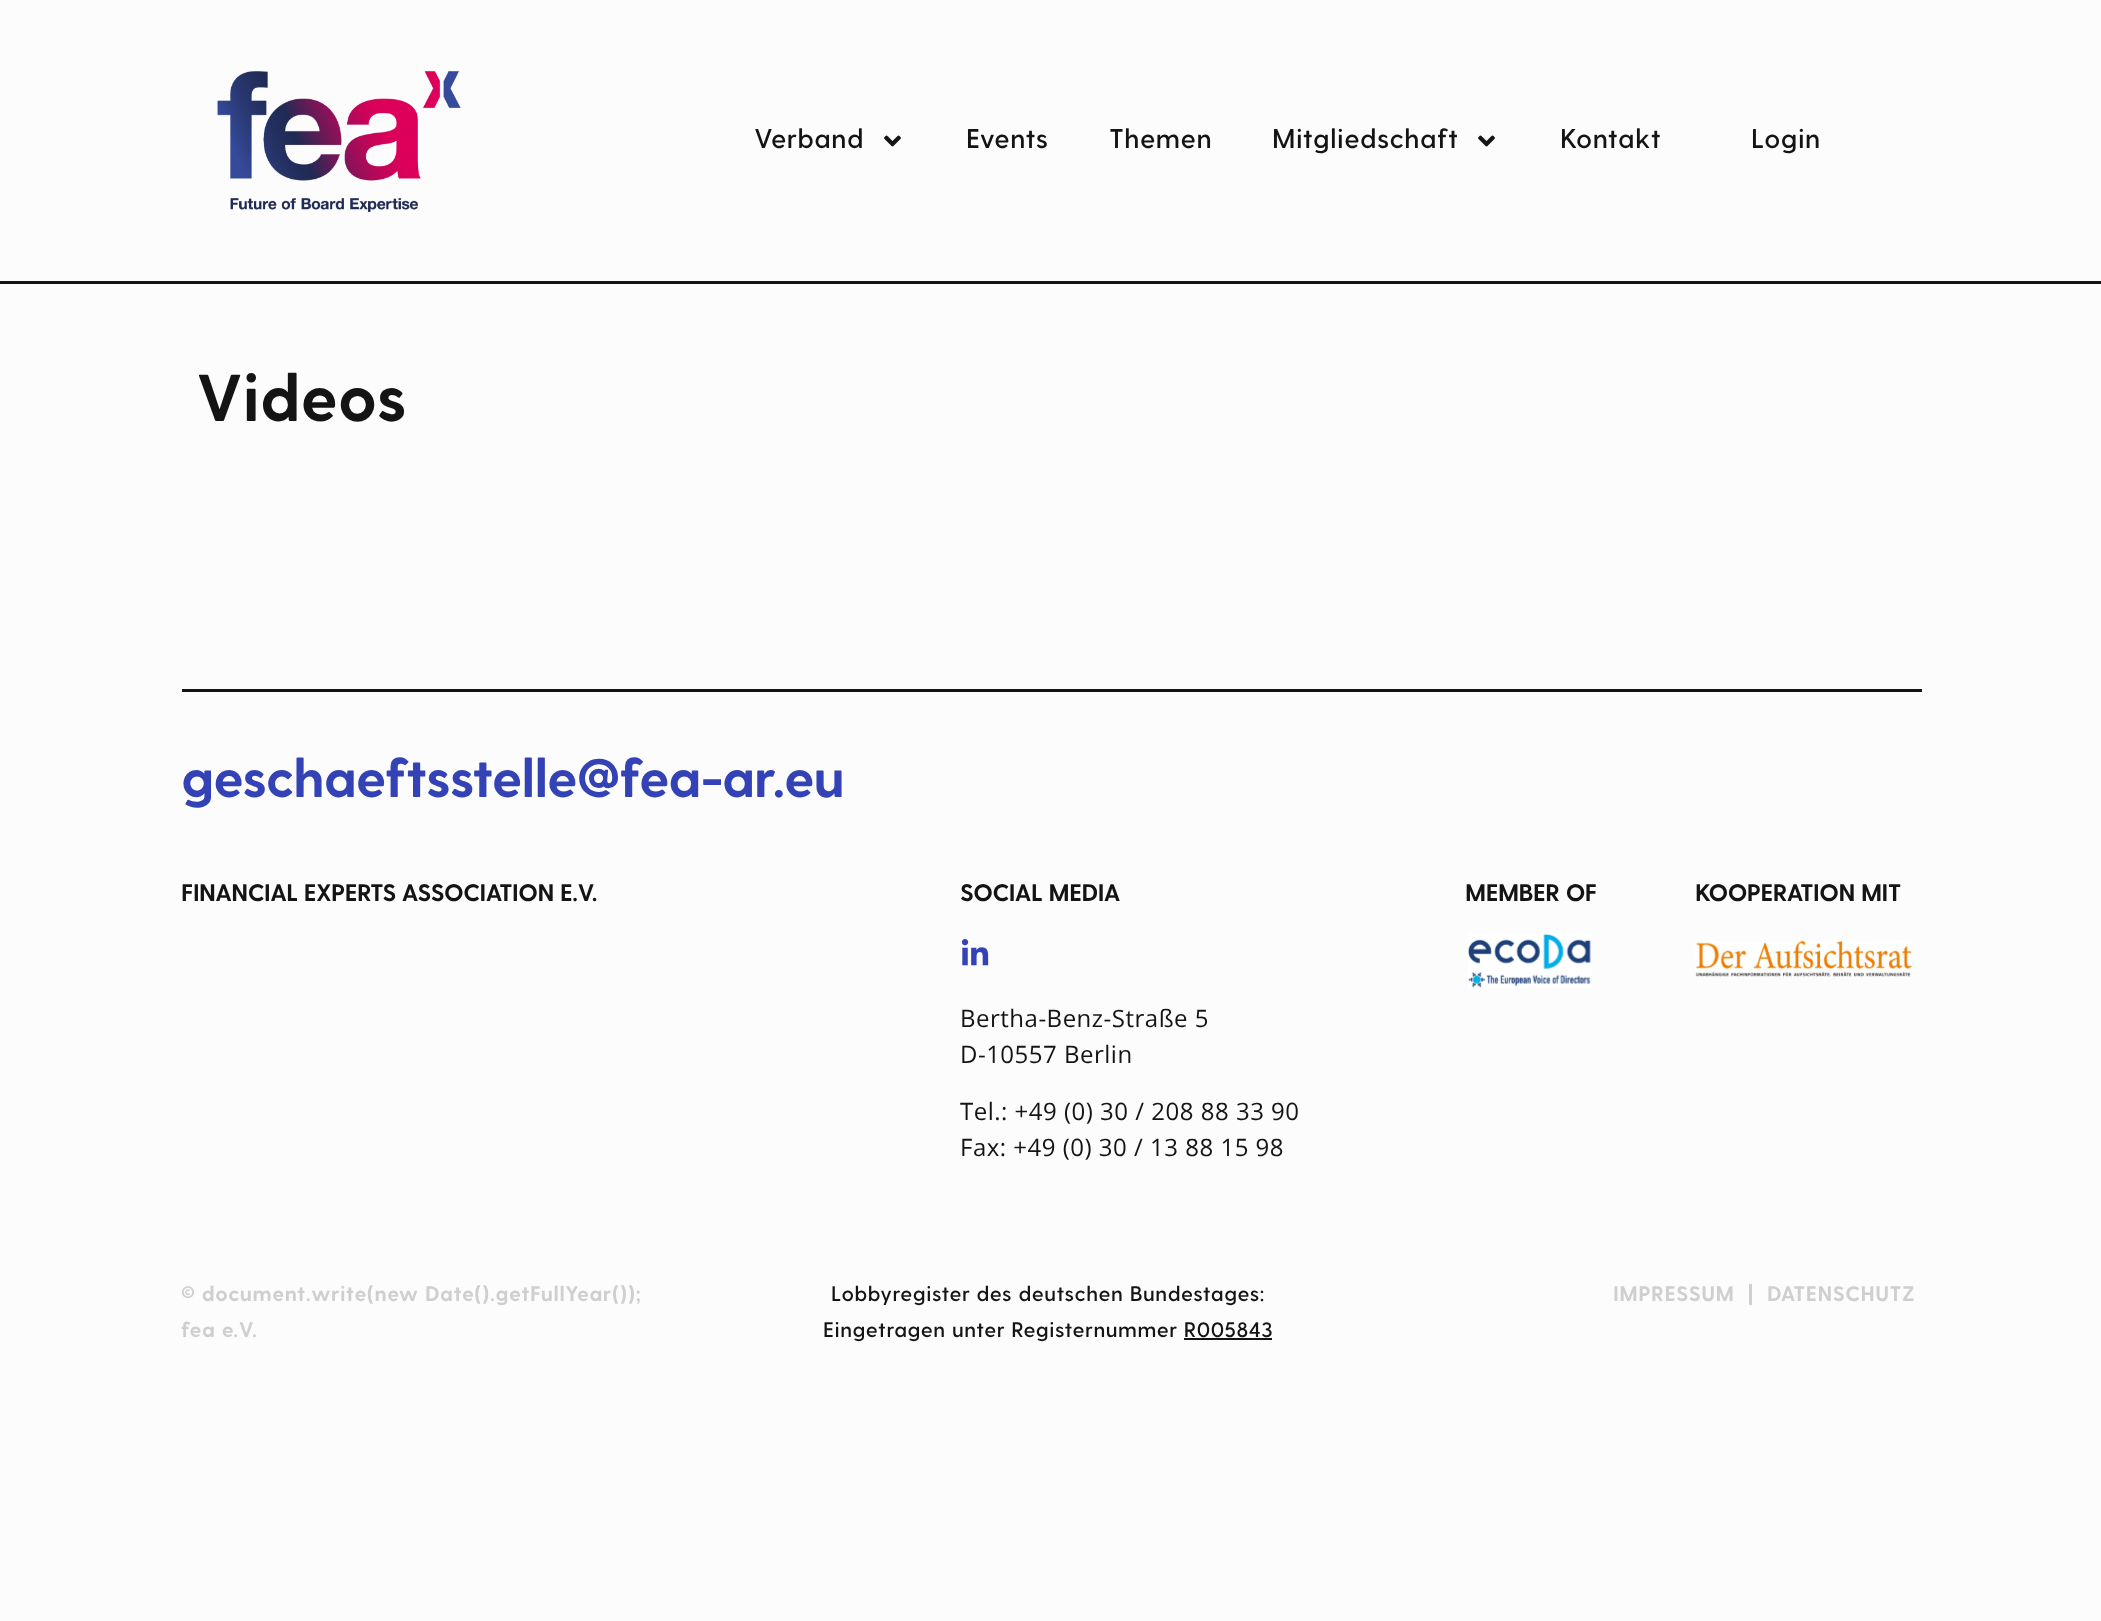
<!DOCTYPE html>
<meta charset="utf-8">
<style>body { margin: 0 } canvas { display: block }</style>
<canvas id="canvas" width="2101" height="1621"></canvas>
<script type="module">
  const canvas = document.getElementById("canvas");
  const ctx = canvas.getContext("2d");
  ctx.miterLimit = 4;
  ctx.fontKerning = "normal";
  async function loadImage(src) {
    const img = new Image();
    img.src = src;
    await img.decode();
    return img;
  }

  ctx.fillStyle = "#fcfcfc";
  ctx.fillRect(0, 0, 2101, 1621);
  ctx.fillStyle = "#141414";
  ctx.fillRect(0, 281, 2101, 3);
  ctx.drawImage(await loadImage("img1.png"), 217, 71, 244, 141);
  ctx.letterSpacing = "0.5px";
  ctx.font = "600 27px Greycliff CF";
  ctx.fillText("Verband", 754, 148);
  ctx.drawImage(await loadImage("img2.png"), 884, 135, 17, 12);
  ctx.fillText("Events", 966, 148);
  ctx.fillText("Themen", 1109, 148);
  ctx.fillText("Mitgliedschaft", 1272, 148);
  ctx.drawImage(await loadImage("img2.png"), 1478, 135, 17, 12);
  ctx.fillText("Kontakt", 1560, 148);
  ctx.fillText("Login", 1751, 148);
  ctx.letterSpacing = "0px";
  ctx.font = "bold 66px Greycliff CF";
  ctx.fillText("Videos", 196, 421);
  ctx.fillRect(182, 689, 1740, 3);
  ctx.letterSpacing = "-1.1px";
  ctx.font = "bold 54px Greycliff CF";
  ctx.fillStyle = "#3343b5";
  ctx.fillText("geschaeftsstelle@fea-ar.eu", 181, 797);
  ctx.letterSpacing = "-0.5px";
  ctx.font = "bold 24px Greycliff CF";
  ctx.fillStyle = "#141414";
  ctx.fillText("FINANCIAL EXPERTS ASSOCIATION E.V.", 181, 901);
  ctx.fillText("SOCIAL MEDIA", 960, 901);
  ctx.drawImage(await loadImage("img3.png"), 961, 939, 28, 27);
  ctx.letterSpacing = "0.5px";
  ctx.font = "24px Open Sans";
  ctx.fillText("Bertha-Benz-Straße 5", 960, 1027);
  ctx.fillText("D-10557 Berlin", 960, 1063);
  ctx.fillText("Tel.: +49 (0) 30 / 208 88 33 90", 960, 1120);
  ctx.fillText("Fax: +49 (0) 30 / 13 88 15 98", 960, 1156);
  ctx.letterSpacing = "-0.5px";
  ctx.font = "bold 24px Greycliff CF";
  ctx.fillText("MEMBER OF", 1465, 901);
  ctx.drawImage(await loadImage("img4.png"), 1468, 933, 123, 55);
  ctx.fillText("KOOPERATION MIT", 1695, 901);
  ctx.drawImage(await loadImage("img5.png"), 1695, 940, 218, 37);
  ctx.letterSpacing = "0.5px";
  ctx.font = "bold 21px Greycliff CF";
  ctx.fillStyle = "#d0cfcf";
  ctx.fillText("© document.write(new Date().getFullYear());", 181, 1301);
  ctx.fillText("fea e.V.", 181, 1337);
  ctx.font = "600 21px Greycliff CF";
  ctx.fillStyle = "#141414";
  ctx.fillText("Lobbyregister des deutschen Bundestages:", 831, 1301);
  ctx.fillText("Eingetragen unter Registernummer R005843", 823, 1337);
  ctx.fillRect(1184, 1338, 88, 2);
  ctx.font = "bold 21px Greycliff CF";
  ctx.fillStyle = "#d0cfcf";
  ctx.fillText("IMPRESSUM", 1613, 1301);
  ctx.fillRect(1749, 1284, 3, 21);
  ctx.fillText("DATENSCHUTZ", 1767, 1301);
</script>
